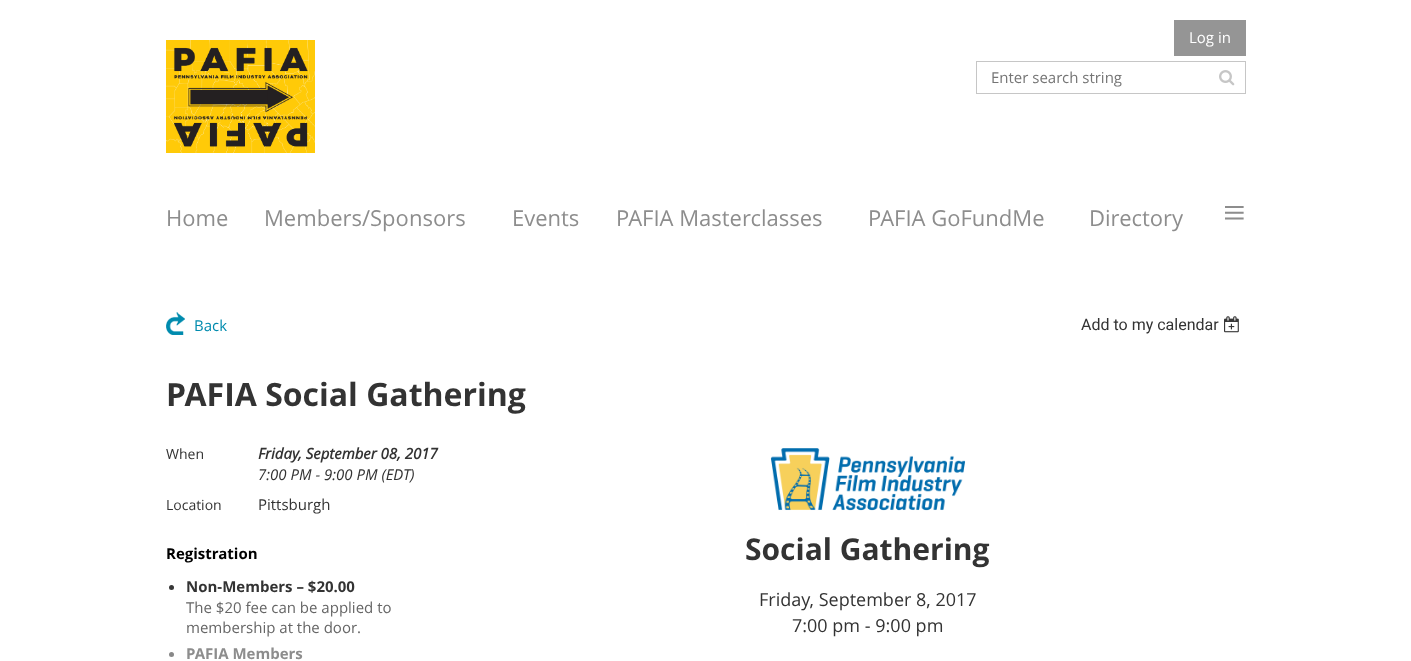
<!DOCTYPE html>
<meta charset="utf-8">
<style>body { margin: 0 } canvas { display: block }</style>
<canvas id="canvas" width="1411" height="661"></canvas>
<script type="module">
  const canvas = document.getElementById("canvas");
  const ctx = canvas.getContext("2d");
  ctx.miterLimit = 4;
  ctx.fontKerning = "normal";
  async function loadImage(src) {
    const img = new Image();
    img.src = src;
    await img.decode();
    return img;
  }

  ctx.fillStyle = "#ffffff";
  ctx.fillRect(0, 0, 1411, 661);
  ctx.drawImage(await loadImage("img1.png"), 166, 40, 149, 113);
  ctx.fillStyle = "#959595";
  ctx.fillRect(1174, 20, 72, 36);
  ctx.font = "15px Open Sans";
  ctx.fillStyle = "#ffffff";
  ctx.fillText("Log in", 1189, 43);
  ctx.strokeStyle = "#c6c6c6";
  ctx.strokeRect(976.5, 61.5, 269, 32);
  ctx.fillStyle = "#757575";
  ctx.fillText("Enter search string", 991, 83);
  ctx.drawImage(await loadImage("img2.png"), 1219, 70, 16, 16);
  ctx.font = "22px Open Sans";
  ctx.fillStyle = "#8d8d8d";
  ctx.fillText("Home", 166, 226);
  ctx.fillText("Members/Sponsors", 264, 226);
  ctx.fillText("Events", 512, 226);
  ctx.fillText("PAFIA Masterclasses", 616, 226);
  ctx.fillText("PAFIA GoFundMe", 868, 226);
  ctx.fillText("Directory", 1089, 226);
  ctx.font = "40px Liberation Serif";
  ctx.fillText("≡", 1223, 226);
  ctx.drawImage(await loadImage("img3.png"), 166, 312, 19, 23);
  ctx.font = "15px Open Sans";
  ctx.fillStyle = "#008bae";
  ctx.fillText("Back", 194, 331);
  ctx.font = "16px Roboto";
  ctx.fillStyle = "#333333";
  ctx.fillText("Add to my calendar", 1081, 330);
  ctx.drawImage(await loadImage("img4.png"), 1224, 316, 15, 17);
  ctx.font = "bold 32px Open Sans";
  ctx.fillText("PAFIA Social Gathering", 166, 406);
  ctx.font = "14px Open Sans";
  ctx.fillText("When", 166, 459);
  ctx.font = "italic bold 15px Open Sans";
  ctx.fillText("Friday, September 08, 2017", 258, 459);
  ctx.font = "italic 15px Open Sans";
  ctx.fillText("7:00 PM - 9:00 PM (EDT)", 258, 480);
  ctx.font = "14px Open Sans";
  ctx.fillText("Location", 166, 510);
  ctx.font = "15px Open Sans";
  ctx.fillText("Pittsburgh", 258, 510);
  ctx.font = "bold 15px Open Sans";
  ctx.fillStyle = "#000000";
  ctx.fillText("Registration", 166, 559);
  ctx.fillStyle = "#373737";
  ctx.beginPath();
  ctx.arc(171.5, 587.5, 2.5, 0, Math.PI * 2);
  ctx.fill();
  ctx.fillStyle = "#333333";
  ctx.fillText("Non-Members – $20.00", 186, 592);
  ctx.font = "15px Open Sans";
  ctx.fillStyle = "#666666";
  ctx.fillText("The $20 fee can be applied to", 186, 613);
  ctx.fillText("membership at the door.", 186, 633);
  ctx.fillStyle = "#888888";
  ctx.beginPath();
  ctx.arc(171.5, 654.5, 2.5, 0, Math.PI * 2);
  ctx.fill();
  ctx.font = "bold 15px Open Sans";
  ctx.fillStyle = "#8d8d8d";
  ctx.fillText("PAFIA Members", 186, 659);
  ctx.drawImage(await loadImage("img5.png"), 770, 448, 196, 63);
  ctx.font = "bold 30px Open Sans";
  ctx.fillStyle = "#333333";
  ctx.fillText("Social Gathering", 745, 560);
  ctx.font = "18px Open Sans";
  ctx.fillText("Friday, September 8, 2017", 759, 606);
  ctx.fillText("7:00 pm - 9:00 pm", 792, 632);
</script>
